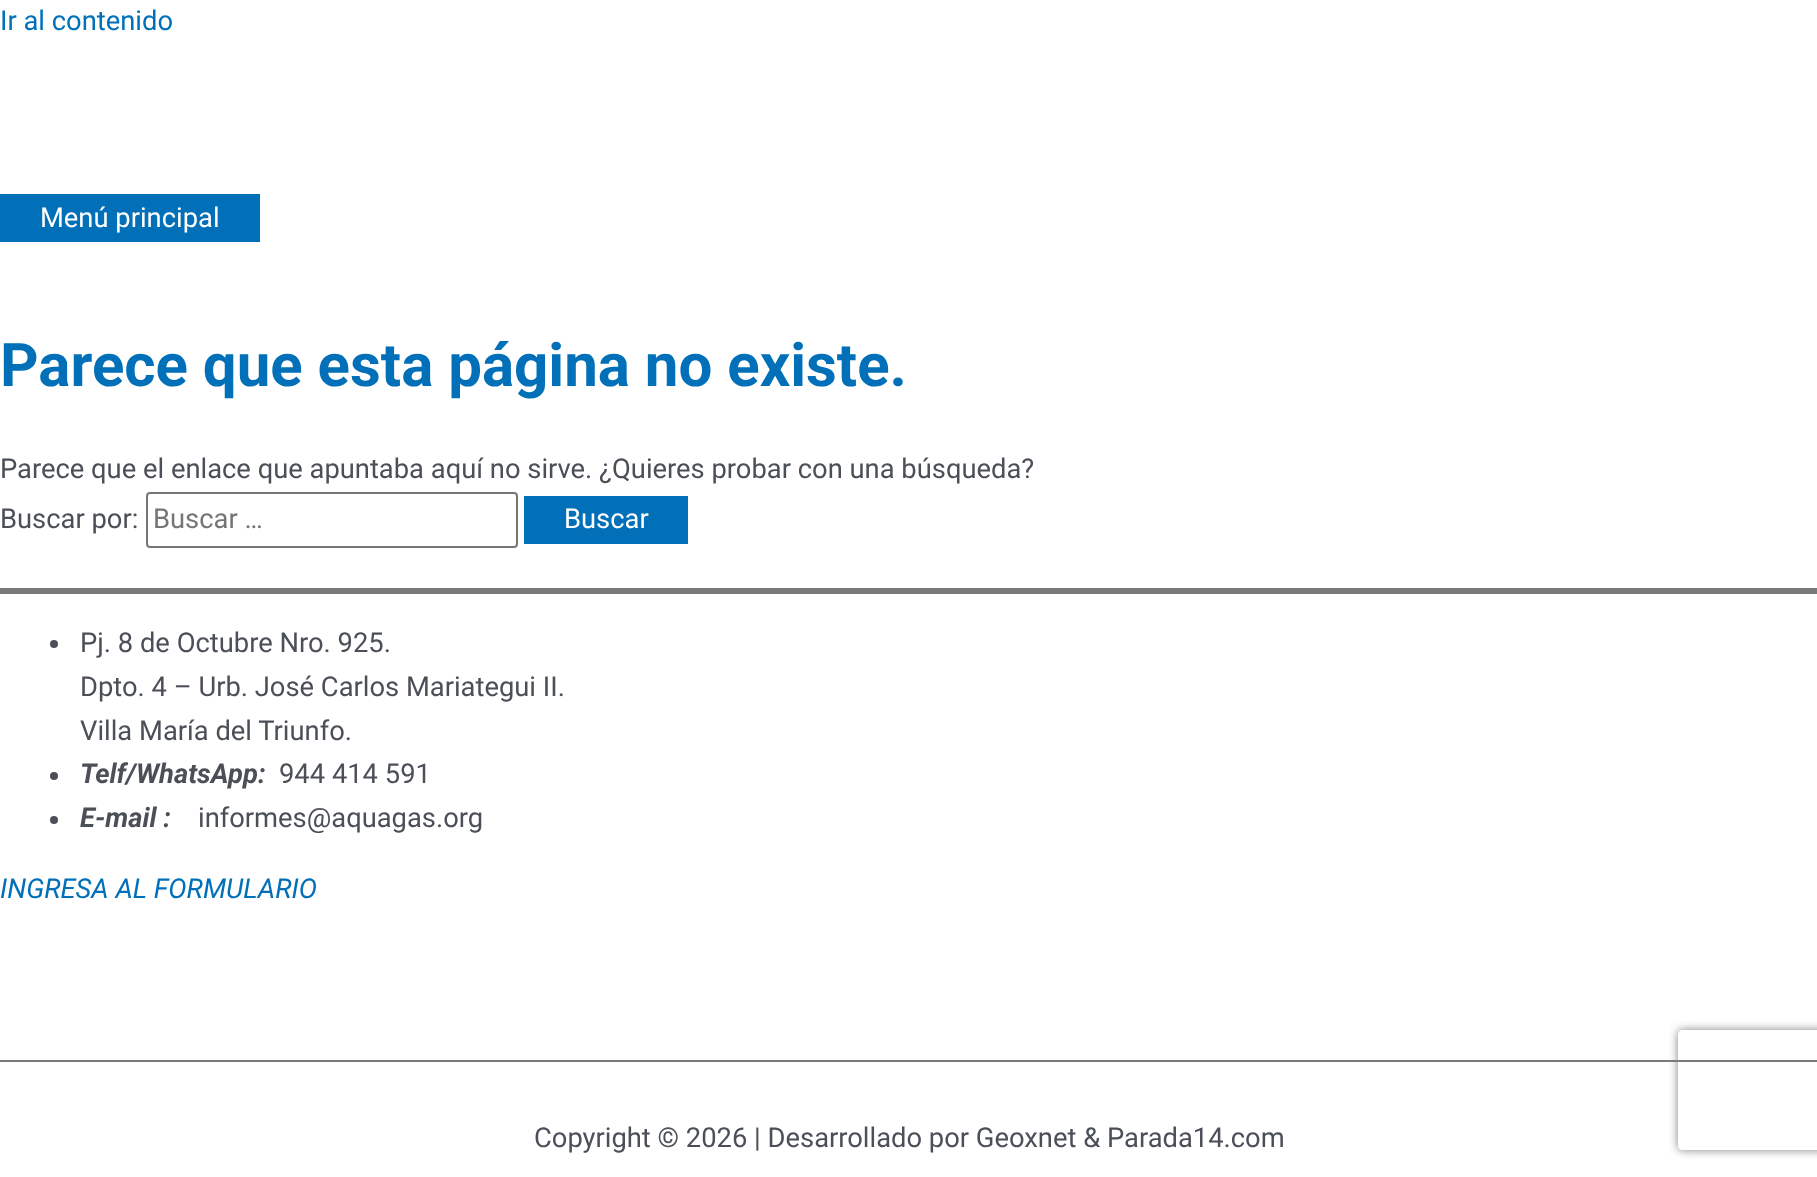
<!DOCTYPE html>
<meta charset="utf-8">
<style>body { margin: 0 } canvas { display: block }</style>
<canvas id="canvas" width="1817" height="1177"></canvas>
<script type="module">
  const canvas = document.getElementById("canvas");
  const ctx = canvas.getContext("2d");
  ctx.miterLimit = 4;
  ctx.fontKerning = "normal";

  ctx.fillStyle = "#ffffff";
  ctx.fillRect(0, 0, 1817, 1177);
  ctx.font = "27.35px Roboto";
  ctx.fillStyle = "#0170b9";
  ctx.fillText("Ir al contenido", 0, 30);
  ctx.fillRect(0, 194, 260, 48);
  ctx.fillStyle = "#ffffff";
  ctx.fillText("Menú principal", 40, 227);
  ctx.font = "bold 60px Roboto";
  ctx.fillStyle = "#0170b9";
  ctx.fillText("Parece que esta página no existe.", 0, 386);
  ctx.font = "27.35px Roboto";
  ctx.fillStyle = "#4b4f58";
  ctx.fillText("Parece que el enlace que apuntaba aquí no sirve. ¿Quieres probar con una búsqueda?", 0, 478);
  ctx.fillText("Buscar por:", 0, 528);
  ctx.beginPath();
  ctx.roundRect(147, 493, 370, 54, 3);
  ctx.strokeStyle = "#767676";
  ctx.lineWidth = 2;
  ctx.stroke();
  ctx.fillStyle = "#757575";
  ctx.fillText("Buscar …", 153, 528);
  ctx.fillStyle = "#0170b9";
  ctx.fillRect(524, 496, 164, 48);
  ctx.fillStyle = "#ffffff";
  ctx.fillText("Buscar", 564, 528);
  ctx.fillStyle = "#7a7a7a";
  ctx.fillRect(0, 588, 1817, 6);
  ctx.fillStyle = "#4b4f58";
  ctx.beginPath();
  ctx.arc(54, 644, 4, 0, Math.PI * 2);
  ctx.fill();
  ctx.fillText("Pj. 8 de Octubre Nro. 925.", 80, 652);
  ctx.fillText("Dpto. 4 – Urb. José Carlos Mariategui II.", 80, 696);
  ctx.fillText("Villa María del Triunfo.", 80, 740);
  ctx.beginPath();
  ctx.arc(54, 776, 4, 0, Math.PI * 2);
  ctx.fill();
  ctx.font = "italic bold 27.35px Roboto";
  ctx.fillText("Telf/WhatsApp:", 80, 783);
  ctx.font = "27.35px Roboto";
  ctx.fillText("944 414 591", 279, 783);
  ctx.beginPath();
  ctx.arc(54, 820, 4, 0, Math.PI * 2);
  ctx.fill();
  ctx.font = "italic bold 27.35px Roboto";
  ctx.fillText("E-mail :", 80, 827);
  ctx.font = "27.35px Roboto";
  ctx.fillText("informes@aquagas.org", 198, 827);
  ctx.font = "italic 27.35px Roboto";
  ctx.fillStyle = "#0170b9";
  ctx.fillText("INGRESA AL FORMULARIO", 0, 898);
  ctx.fillStyle = "#7a7a7a";
  ctx.fillRect(0, 1060, 1817, 2);
  ctx.font = "27.35px Roboto";
  ctx.fillStyle = "#4b4f58";
  ctx.fillText("Copyright © 2026 | Desarrollado por Geoxnet & Parada14.com", 534, 1147);
  ctx.save();
  ctx.beginPath();
  ctx.moveTo(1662, 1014);
  ctx.lineTo(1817, 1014);
  ctx.lineTo(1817, 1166);
  ctx.lineTo(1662, 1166);
  ctx.closePath();
  ctx.moveTo(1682, 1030);
  ctx.lineTo(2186, 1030);
  ctx.bezierCurveTo(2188, 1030, 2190, 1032, 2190, 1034);
  ctx.lineTo(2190, 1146);
  ctx.bezierCurveTo(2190, 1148, 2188, 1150, 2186, 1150);
  ctx.lineTo(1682, 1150);
  ctx.bezierCurveTo(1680, 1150, 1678, 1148, 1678, 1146);
  ctx.lineTo(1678, 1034);
  ctx.bezierCurveTo(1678, 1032, 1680, 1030, 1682, 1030);
  ctx.closePath();
  ctx.clip("evenodd");
  ctx.fillStyle = "#808080";
  ctx.filter = "blur(5px)";
  ctx.beginPath();
  ctx.roundRect(1678, 1030, 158, 120, 4);
  ctx.fill();
  ctx.filter = "none";
  ctx.restore();
</script>
